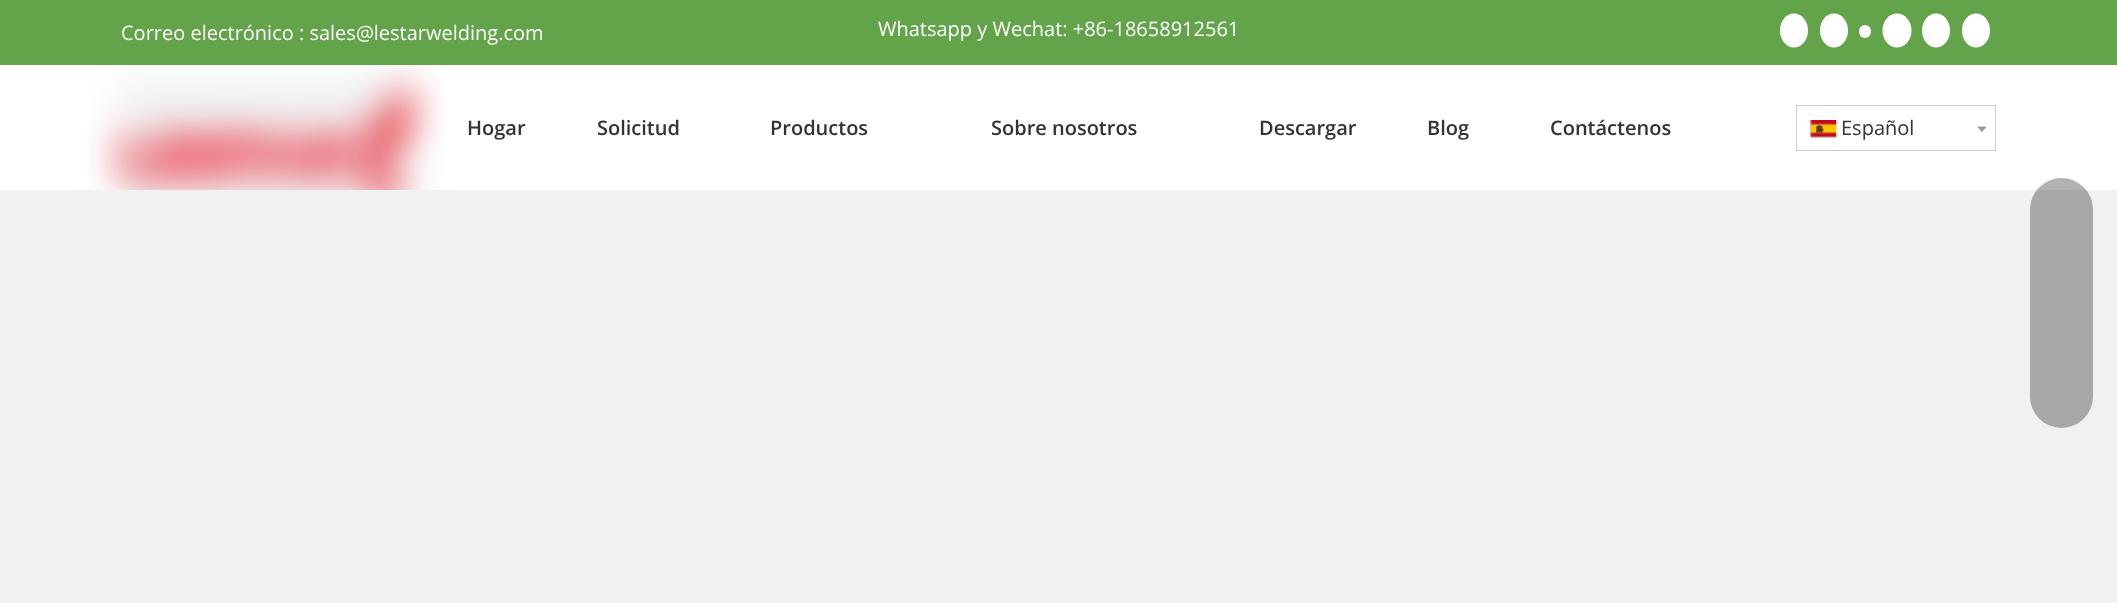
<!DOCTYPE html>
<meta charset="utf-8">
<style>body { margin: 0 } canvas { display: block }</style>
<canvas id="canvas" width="2117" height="603"></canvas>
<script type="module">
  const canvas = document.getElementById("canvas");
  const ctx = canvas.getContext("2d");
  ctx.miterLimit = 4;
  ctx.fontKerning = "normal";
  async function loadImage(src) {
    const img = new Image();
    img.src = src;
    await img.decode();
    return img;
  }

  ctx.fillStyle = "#ffffff";
  ctx.fillRect(0, 0, 2117, 603);
  ctx.fillStyle = "#63a44a";
  ctx.fillRect(0, 0, 2117, 65);
  ctx.font = "20px Open Sans";
  ctx.fillStyle = "#ffffff";
  ctx.fillText("Correo electrónico : sales@lestarwelding.com", 121, 40);
  ctx.fillText("Whatsapp y Wechat: +86-18658912561", 878, 36);
  ctx.beginPath();
  ctx.ellipse(1794, 30.5, 14, 17, 0, 0, Math.PI * 2);
  ctx.fill();
  ctx.beginPath();
  ctx.ellipse(1834, 30.5, 14, 17, 0, 0, Math.PI * 2);
  ctx.fill();
  ctx.beginPath();
  ctx.roundRect(1859, 25, 12, 13, 6);
  ctx.fill();
  ctx.beginPath();
  ctx.ellipse(1897, 30.5, 14.5, 17, 0, 0, Math.PI * 2);
  ctx.fill();
  ctx.beginPath();
  ctx.ellipse(1936, 30.5, 14, 17, 0, 0, Math.PI * 2);
  ctx.fill();
  ctx.beginPath();
  ctx.ellipse(1976, 30.5, 14, 17, 0, 0, Math.PI * 2);
  ctx.fill();
  ctx.fillStyle = "#f0f1f2";
  ctx.fillRect(0, 190, 2117, 413);
  ctx.save();
  ctx.beginPath();
  ctx.rect(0, 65, 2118, 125);
  ctx.clip();
  ctx.filter = "blur(19px)";
  ctx.beginPath();
  ctx.rect(121, 78, 292, 136);
  ctx.fill();
  ctx.filter = "none";
  ctx.restore();
  ctx.drawImage(await loadImage("img1.png"), 89, 65, 355, 125);
  ctx.font = "600 20px Open Sans";
  ctx.fillStyle = "#333333";
  ctx.fillText("Hogar", 467, 135);
  ctx.fillText("Solicitud", 597, 135);
  ctx.fillText("Productos", 770, 135);
  ctx.fillText("Sobre nosotros", 991, 135);
  ctx.fillText("Descargar", 1259, 135);
  ctx.fillText("Blog", 1427, 135);
  ctx.fillText("Contáctenos", 1550, 135);
  ctx.strokeStyle = "#cccccc";
  ctx.strokeRect(1796.5, 105.5, 199, 45);
  ctx.drawImage(await loadImage("img2.png"), 1810, 120, 27, 18);
  ctx.font = "20px Open Sans";
  ctx.fillText("Español", 1841, 135);
  ctx.drawImage(await loadImage("img3.png"), 1977, 126, 10, 7);
  ctx.fillStyle = "rgba(0, 0, 0, 0.3)";
  ctx.beginPath();
  ctx.roundRect(2030, 178, 63, 250, 31.5);
  ctx.fill();
</script>
